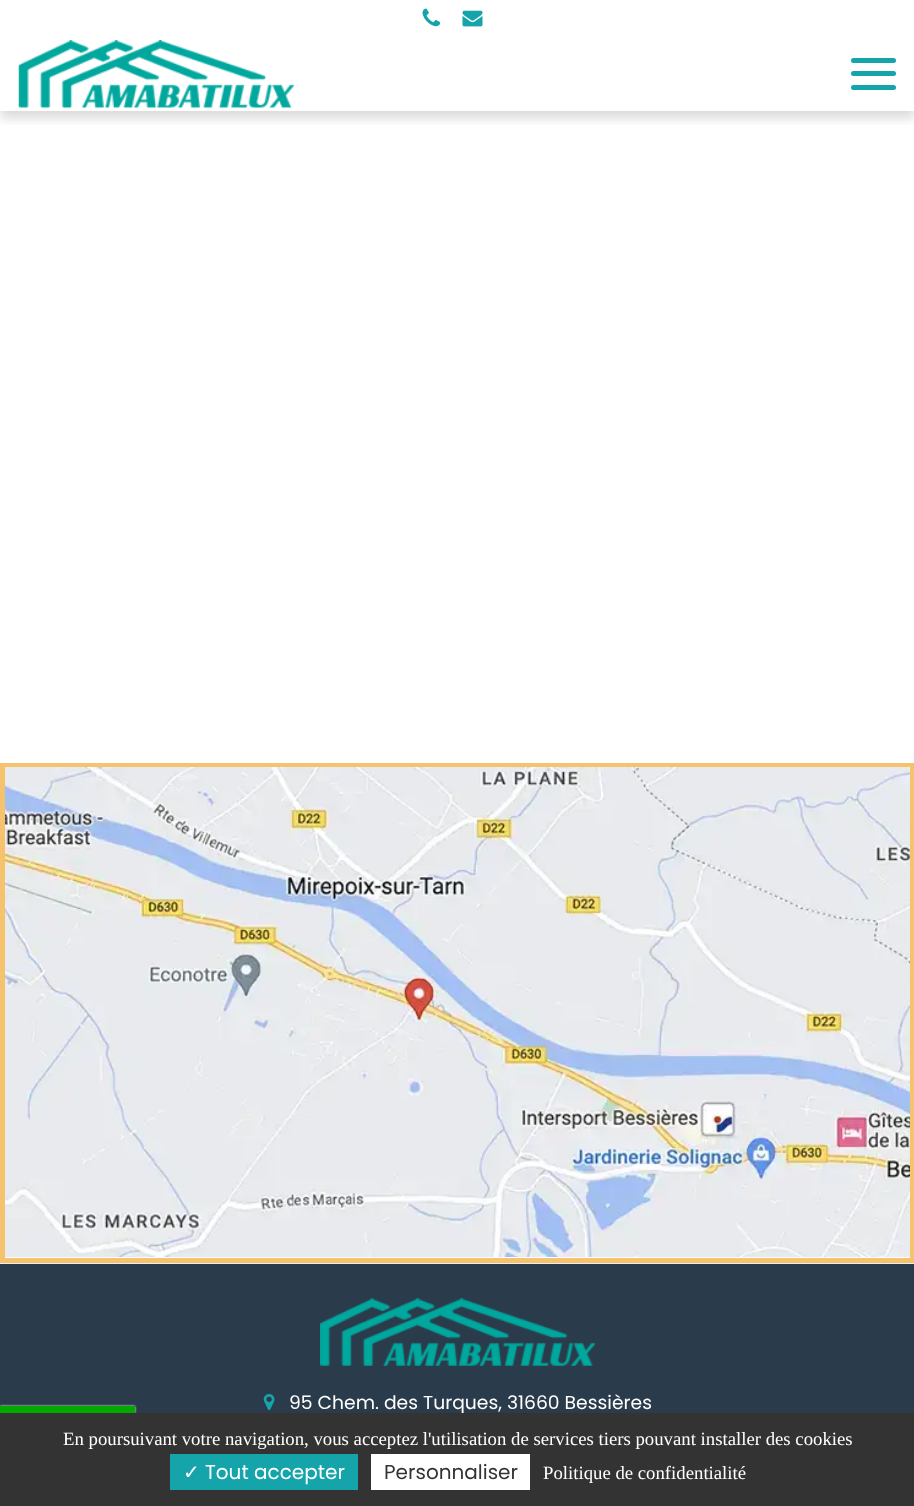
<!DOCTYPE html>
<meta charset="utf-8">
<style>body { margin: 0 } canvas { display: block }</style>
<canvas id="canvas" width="914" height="1506"></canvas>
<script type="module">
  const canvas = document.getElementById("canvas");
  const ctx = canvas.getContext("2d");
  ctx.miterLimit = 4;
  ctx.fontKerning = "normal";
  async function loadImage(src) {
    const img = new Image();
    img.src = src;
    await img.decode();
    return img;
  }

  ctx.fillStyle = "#ffffff";
  ctx.fillRect(0, 0, 914, 1506);
  ctx.save();
  ctx.beginPath();
  ctx.rect(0, 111, 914, 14);
  ctx.clip();
  ctx.fillStyle = "rgba(0, 0, 0, 0.15)";
  ctx.filter = "blur(6px)";
  ctx.beginPath();
  ctx.rect(0, 43, 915, 75);
  ctx.fill();
  ctx.filter = "none";
  ctx.restore();
  ctx.drawImage(await loadImage("img1.png"), 422, 8, 19, 19);
  ctx.drawImage(await loadImage("img2.png"), 462, 10, 21, 17);
  ctx.drawImage(await loadImage("img3.png"), 18, 40, 276, 68);
  ctx.fillStyle = "#14a4aa";
  ctx.beginPath();
  ctx.roundRect(851, 58, 45, 5, 2.5);
  ctx.fill();
  ctx.beginPath();
  ctx.roundRect(851, 71, 45, 5, 2.5);
  ctx.fill();
  ctx.beginPath();
  ctx.roundRect(851, 85, 45, 5, 2.5);
  ctx.fill();
  ctx.strokeStyle = "#f5c36d";
  ctx.lineWidth = 5;
  ctx.strokeRect(2.5, 765.5, 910, 495);
  ctx.drawImage(await loadImage("img4.png"), 5, 767, 905, 490);
  ctx.fillStyle = "#2a3c4c";
  ctx.fillRect(0, 1264, 914, 149);
  ctx.fillStyle = "#ededed";
  ctx.fillRect(0, 1263, 914, 1);
  ctx.drawImage(await loadImage("img5.png"), 320, 1298, 275, 68);
  ctx.drawImage(await loadImage("img6.png"), 263, 1394, 12, 16);
  ctx.font = "18.75px Poppins";
  ctx.fillStyle = "#ffffff";
  ctx.fillText("95 Chem. des Turques, 31660 Bessières", 289, 1409);
  ctx.fillStyle = "#555555";
  ctx.filter = "blur(1px)";
  ctx.beginPath();
  ctx.rect(0, 1408, 135, 6);
  ctx.fill();
  ctx.filter = "none";
  ctx.fillStyle = "#ffffff";
  ctx.filter = "blur(1px)";
  ctx.beginPath();
  ctx.rect(0, 1406, 135, 7);
  ctx.fill();
  ctx.filter = "none";
  ctx.fillStyle = "#00aa00";
  ctx.fillRect(0, 1406, 135, 7);
  ctx.fillStyle = "#333333";
  ctx.fillRect(0, 1413, 914, 93);
  ctx.font = "18.75px Liberation Serif";
  ctx.fillStyle = "#ffffff";
  ctx.fillText("En poursuivant votre navigation, vous acceptez l'utilisation de services tiers pouvant installer des cookies", 63, 1445);
  ctx.fillStyle = "#14a4aa";
  ctx.fillRect(170, 1454, 188, 36);
  ctx.font = "20px DejaVu Sans";
  ctx.fillStyle = "#ffffff";
  ctx.fillText("✓", 183, 1479);
  ctx.font = "20px Poppins";
  ctx.fillText("Tout accepter", 205, 1479);
  ctx.fillRect(371, 1454, 159, 36);
  ctx.fillStyle = "#333333";
  ctx.fillText("Personnaliser", 384, 1479);
  ctx.font = "18.75px Liberation Serif";
  ctx.fillStyle = "#ffffff";
  ctx.fillText("Politique de confidentialité", 543, 1479);
</script>
